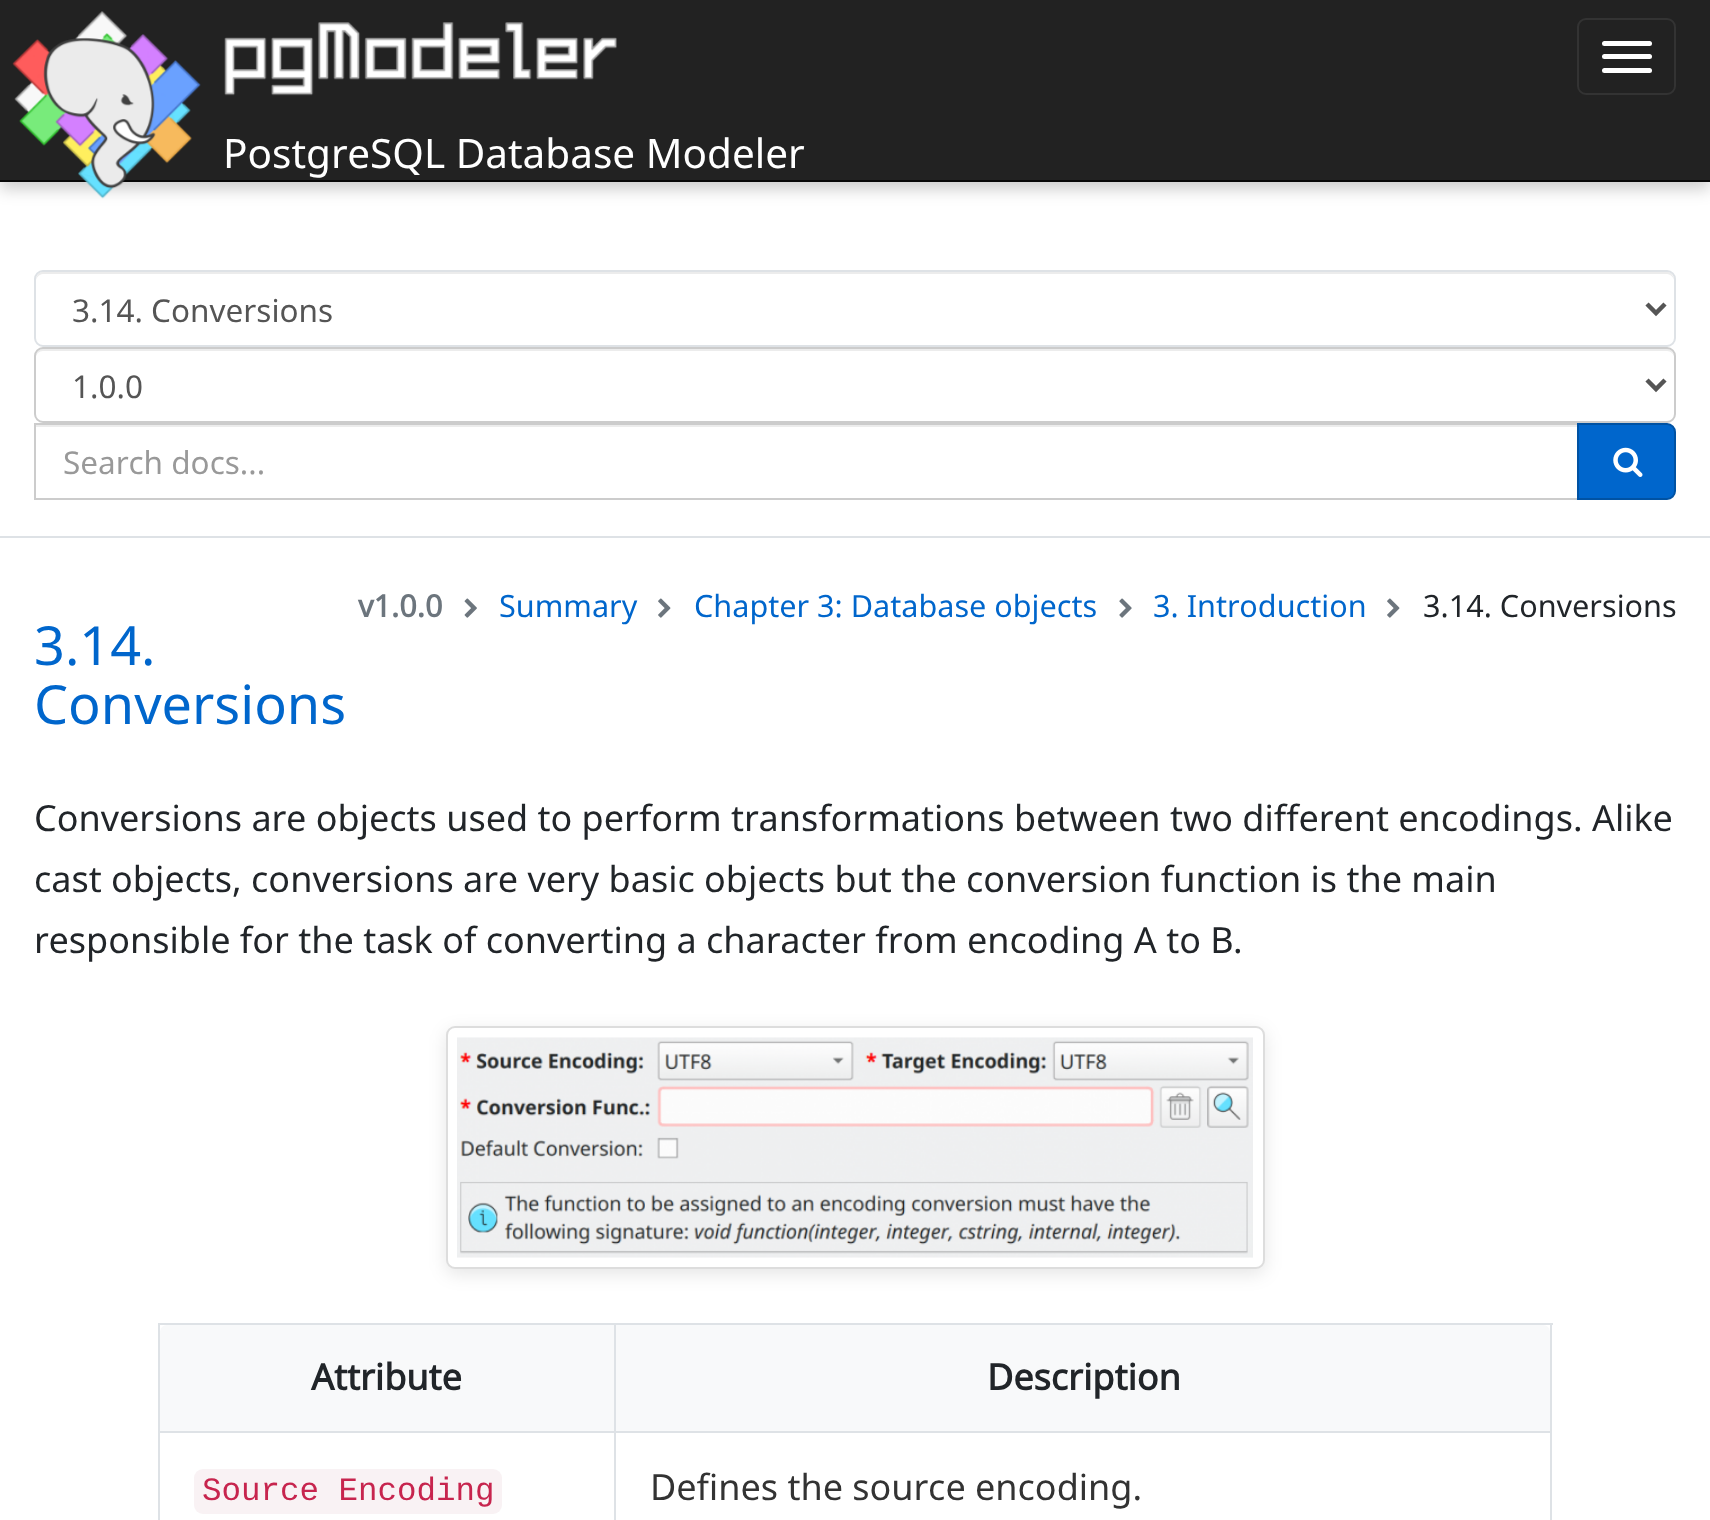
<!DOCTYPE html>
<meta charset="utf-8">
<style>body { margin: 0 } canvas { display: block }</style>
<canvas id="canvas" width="1710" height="1520"></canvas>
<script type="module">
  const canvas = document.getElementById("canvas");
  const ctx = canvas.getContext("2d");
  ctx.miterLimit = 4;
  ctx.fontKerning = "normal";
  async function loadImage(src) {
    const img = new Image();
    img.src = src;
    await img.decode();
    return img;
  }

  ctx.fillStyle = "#ffffff";
  ctx.fillRect(0, 0, 1710, 1520);
  ctx.fillStyle = "rgba(0, 0, 0, 0.2)";
  ctx.filter = "blur(8px)";
  ctx.beginPath();
  ctx.rect(0, 7, 1710, 182);
  ctx.fill();
  ctx.filter = "none";
  ctx.fillStyle = "#222222";
  ctx.fillRect(0, 0, 1710, 180);
  ctx.fillStyle = "#080808";
  ctx.fillRect(0, 180, 1710, 2);
  ctx.drawImage(await loadImage("img1.png"), 12, 11, 189, 188);
  ctx.drawImage(await loadImage("img2.png"), 224, 22, 393, 74);
  ctx.beginPath();
  ctx.roundRect(1578, 19, 97, 75, 8);
  ctx.strokeStyle = "#333333";
  ctx.lineWidth = 2;
  ctx.stroke();
  ctx.fillStyle = "#ffffff";
  ctx.beginPath();
  ctx.roundRect(1602, 41, 50, 5, 2.5);
  ctx.fill();
  ctx.beginPath();
  ctx.roundRect(1602, 54, 50, 5, 2.5);
  ctx.fill();
  ctx.beginPath();
  ctx.roundRect(1602, 68, 50, 5, 2.5);
  ctx.fill();
  ctx.font = "40.5px Noto Sans";
  ctx.fillText("PostgreSQL Database Modeler", 223, 168);
  ctx.fillStyle = "#dee2e6";
  ctx.fillRect(0, 536, 1710, 2);
  ctx.fillStyle = "#ececec";
  ctx.beginPath();
  ctx.moveTo(43, 274);
  ctx.lineTo(1667, 274);
  ctx.bezierCurveTo(1671, 274, 1674, 278, 1674, 281);
  ctx.bezierCurveTo(1674, 277, 1672, 272, 1667, 272);
  ctx.lineTo(43, 272);
  ctx.bezierCurveTo(38, 272, 36, 277, 36, 281);
  ctx.bezierCurveTo(36, 278, 39, 274, 43, 274);
  ctx.closePath();
  ctx.fill();
  ctx.beginPath();
  ctx.roundRect(35, 271, 1640, 75, 8);
  ctx.strokeStyle = "#dee2e6";
  ctx.stroke();
  ctx.beginPath();
  ctx.moveTo(1647, 304);
  ctx.lineTo(1656, 313);
  ctx.lineTo(1665, 304);
  ctx.strokeStyle = "#555555";
  ctx.lineWidth = 4.5;
  ctx.stroke();
  ctx.font = "31.5px Noto Sans";
  ctx.fillStyle = "#555555";
  ctx.fillText("3.14. Conversions", 72, 322);
  ctx.fillStyle = "#ececec";
  ctx.beginPath();
  ctx.moveTo(43, 351);
  ctx.lineTo(1667, 351);
  ctx.bezierCurveTo(1671, 351, 1674, 354, 1674, 358);
  ctx.bezierCurveTo(1674, 354, 1672, 349, 1667, 349);
  ctx.lineTo(43, 349);
  ctx.bezierCurveTo(38, 349, 36, 354, 36, 358);
  ctx.bezierCurveTo(36, 354, 39, 351, 43, 351);
  ctx.closePath();
  ctx.fill();
  ctx.beginPath();
  ctx.roundRect(35, 348, 1640, 74, 8);
  ctx.strokeStyle = "#cccccc";
  ctx.lineWidth = 2;
  ctx.stroke();
  ctx.beginPath();
  ctx.moveTo(1647, 380);
  ctx.lineTo(1656, 389);
  ctx.lineTo(1665, 380);
  ctx.strokeStyle = "#555555";
  ctx.lineWidth = 4.5;
  ctx.stroke();
  ctx.fillStyle = "#555555";
  ctx.fillText("1.0.0", 72, 398);
  ctx.fillStyle = "#ececec";
  ctx.fillRect(36, 425, 1541, 2);
  ctx.strokeStyle = "#cccccc";
  ctx.lineWidth = 2;
  ctx.strokeRect(35, 424, 1544, 75);
  ctx.fillStyle = "#999999";
  ctx.fillText("Search docs...", 63, 474);
  ctx.fillStyle = "#0066cc";
  ctx.beginPath();
  ctx.roundRect(1578, 424, 97, 75, [0, 8, 8, 0]);
  ctx.fill();
  ctx.strokeStyle = "#0052a3";
  ctx.stroke();
  ctx.drawImage(await loadImage("img3.png"), 1613, 447, 30, 30);
  ctx.font = "bold 30.6px Noto Sans";
  ctx.fillStyle = "#6c757d";
  ctx.fillText("v1.0.0", 358, 617);
  ctx.drawImage(await loadImage("img4.png"), 464, 598, 13, 20);
  ctx.font = "30.6px Noto Sans";
  ctx.fillStyle = "#0066cc";
  ctx.fillText("Summary", 499, 617);
  ctx.drawImage(await loadImage("img5.png"), 658, 598, 13, 20);
  ctx.fillText("Chapter 3: Database objects", 694, 617);
  ctx.drawImage(await loadImage("img6.png"), 1119, 598, 13, 20);
  ctx.fillText("3. Introduction", 1153, 617);
  ctx.drawImage(await loadImage("img5.png"), 1387, 598, 13, 20);
  ctx.fillStyle = "#212529";
  ctx.fillText("3.14. Conversions", 1423, 617);
  ctx.font = "54px Noto Sans";
  ctx.fillStyle = "#0066cc";
  ctx.fillText("3.14.", 34, 665);
  ctx.fillText("Conversions", 34, 724);
  ctx.font = "36px Noto Sans";
  ctx.fillStyle = "#212529";
  ctx.fillText("Conversions are objects used to perform transformations between two different encodings. Alike", 34, 831);
  ctx.fillText("cast objects, conversions are very basic objects but the conversion function is the main", 34, 892);
  ctx.fillText("responsible for the task of converting a character from encoding A to B.", 34, 953);
  ctx.fillStyle = "rgba(0, 0, 0, 0.1)";
  ctx.filter = "blur(9px)";
  ctx.beginPath();
  ctx.roundRect(446, 1031, 819, 243, 9);
  ctx.fill();
  ctx.filter = "none";
  ctx.fillStyle = "#ffffff";
  ctx.beginPath();
  ctx.roundRect(447, 1027, 817, 241, 8);
  ctx.fill();
  ctx.strokeStyle = "#dddddd";
  ctx.stroke();
  ctx.drawImage(await loadImage("img7.png"), 457, 1037, 796, 221);
  ctx.fillStyle = "#dee2e6";
  ctx.fillRect(158, 1323, 1395, 2);
  ctx.fillRect(1550, 1323, 2, 197);
  ctx.fillRect(158, 1323, 2, 197);
  ctx.fillStyle = "#f8f9fa";
  ctx.beginPath();
  ctx.roundRect(160, 1325, 454, 106, [7, 0, 0, 0]);
  ctx.fill();
  ctx.font = "bold 36px Noto Sans";
  ctx.fillStyle = "#212529";
  ctx.fillText("Attribute", 311, 1390);
  ctx.fillStyle = "#f8f9fa";
  ctx.beginPath();
  ctx.roundRect(614, 1325, 936, 106, [0, 7, 0, 0]);
  ctx.fill();
  ctx.fillStyle = "#dee2e6";
  ctx.fillRect(614, 1431, 936, 2);
  ctx.fillRect(614, 1431, 2, 89);
  ctx.fillRect(160, 1431, 457, 2);
  ctx.fillRect(614, 1325, 2, 108);
  ctx.fillStyle = "#212529";
  ctx.fillText("Description", 987, 1390);
  ctx.fillStyle = "#f9f2f4";
  ctx.beginPath();
  ctx.roundRect(194, 1469, 308, 45, 9);
  ctx.fill();
  ctx.font = "32.5px Liberation Mono";
  ctx.fillStyle = "#c7254e";
  ctx.fillText("Source Encoding", 202, 1500);
  ctx.font = "36px Noto Sans";
  ctx.fillStyle = "#333333";
  ctx.fillText("Defines the source encoding.", 650, 1500);
</script>
